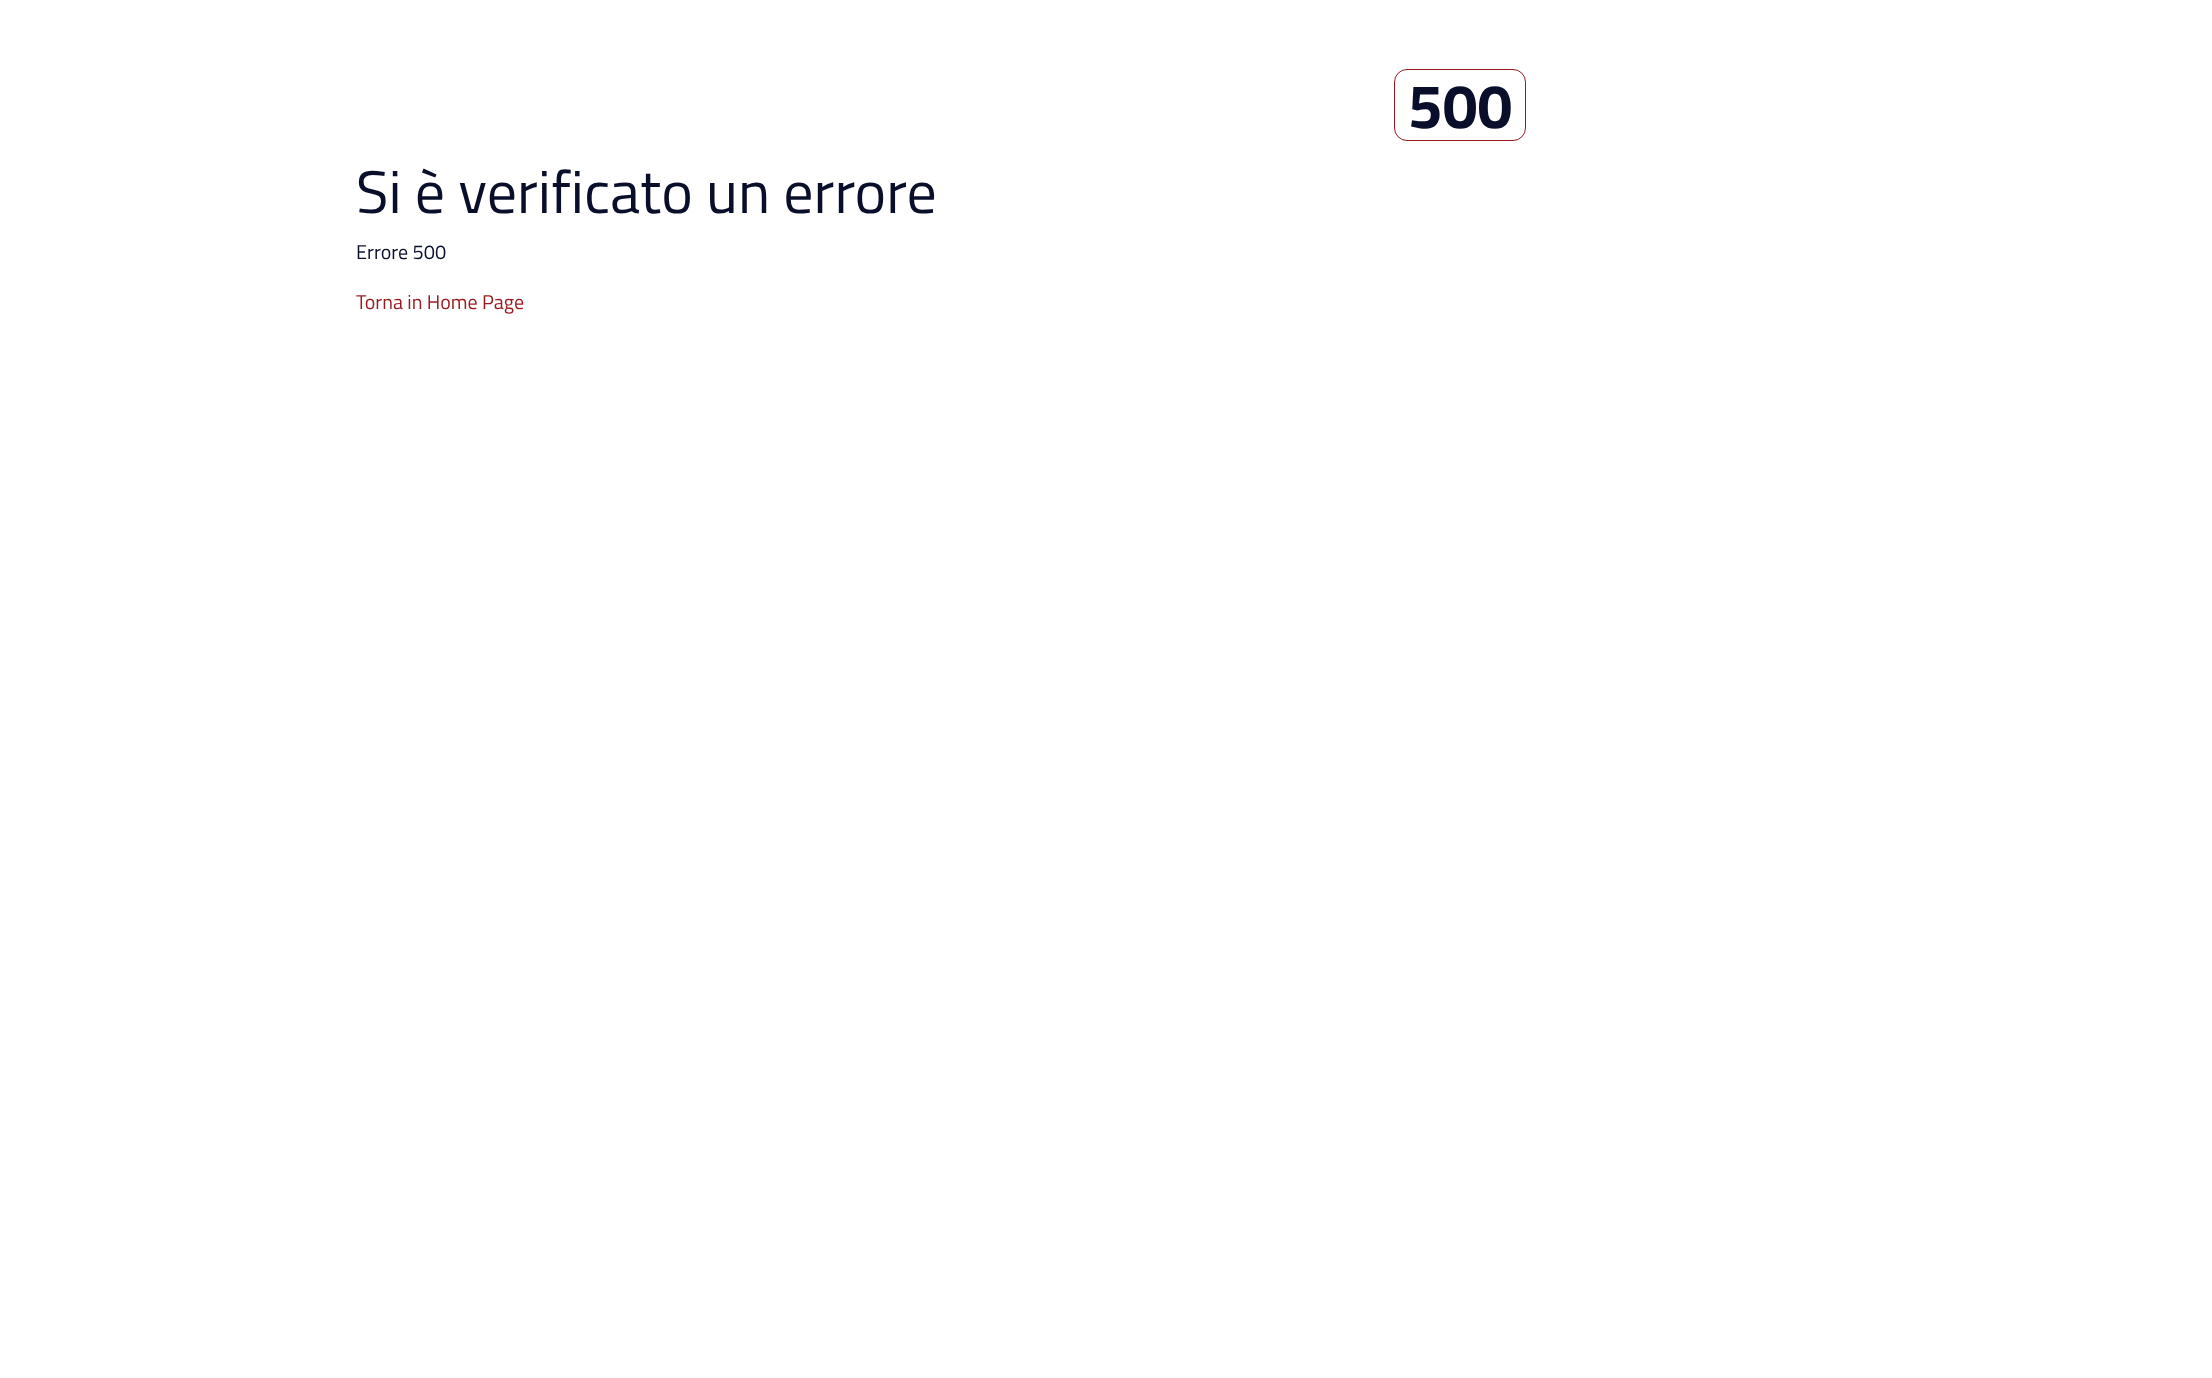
<!DOCTYPE html>
<meta charset="utf-8">
<style>body { margin: 0 } canvas { display: block }</style>
<canvas id="canvas" width="2212" height="1378"></canvas>
<script type="module">
  const canvas = document.getElementById("canvas");
  const ctx = canvas.getContext("2d");
  ctx.miterLimit = 4;
  ctx.fontKerning = "normal";

  ctx.fillStyle = "#ffffff";
  ctx.fillRect(0, 0, 2212, 1378);
  ctx.beginPath();
  ctx.roundRect(1394.5, 69.5, 131, 71, 12.5);
  ctx.strokeStyle = "#9a191e";
  ctx.stroke();
  ctx.font = "bold 62px Titillium Web";
  ctx.fillStyle = "#090e2b";
  ctx.fillText("500", 1408, 128);
  ctx.font = "60px Titillium Web";
  ctx.fillText("Si è verificato un errore", 356, 213);
  ctx.font = "20px Titillium Web";
  ctx.fillText("Errore 500", 356, 259);
  ctx.fillStyle = "#9a191e";
  ctx.fillText("Torna in Home Page", 356, 309);
</script>
